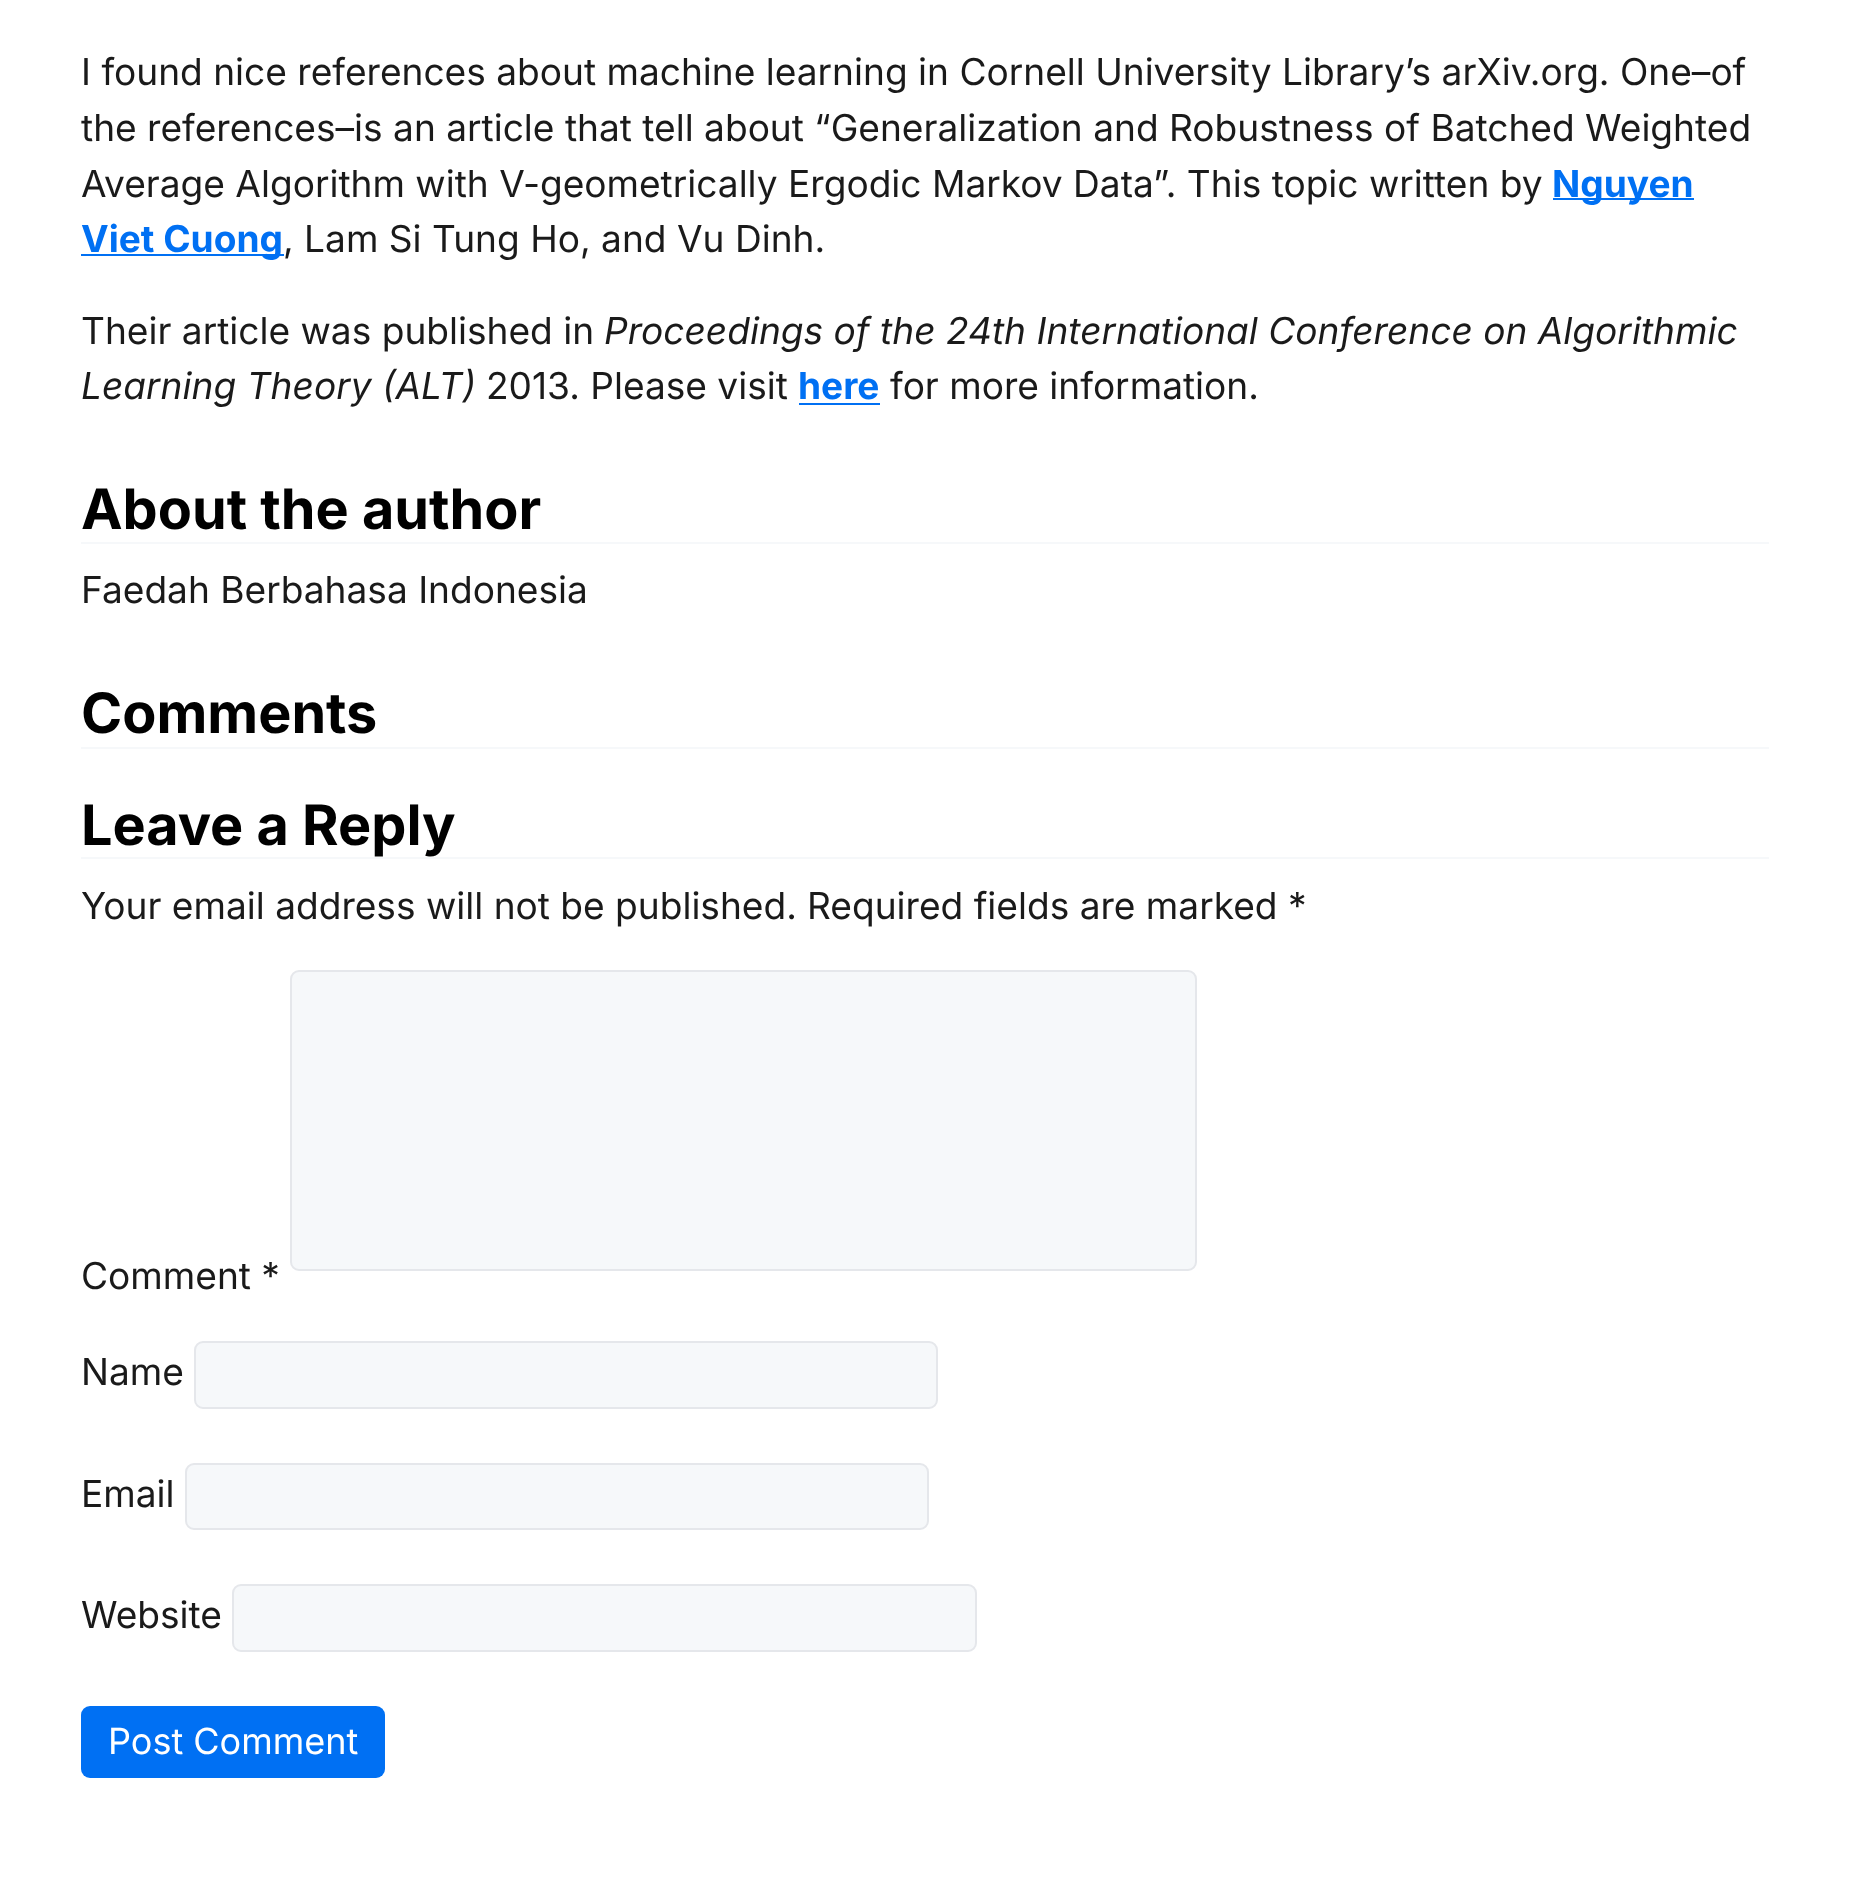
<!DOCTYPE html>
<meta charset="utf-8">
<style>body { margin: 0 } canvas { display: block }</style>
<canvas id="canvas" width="1849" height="1903"></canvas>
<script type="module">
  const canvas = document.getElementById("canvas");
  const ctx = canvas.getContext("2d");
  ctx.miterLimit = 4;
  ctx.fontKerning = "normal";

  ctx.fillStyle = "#ffffff";
  ctx.fillRect(0, 0, 1849, 1903);
  ctx.font = "37.1px Inter";
  ctx.fillStyle = "#1a1a1a";
  ctx.fillText("I found nice references about machine learning in Cornell University Library’s arXiv.org. One–of", 81, 85);
  ctx.fillText("the references–is an article that tell about “Generalization and Robustness of Batched Weighted", 81, 141);
  ctx.fillText("Average Algorithm with V-geometrically Ergodic Markov Data”. This topic written by", 81, 197);
  ctx.fillStyle = "#0070f3";
  ctx.fillRect(1553, 198, 141, 2);
  ctx.font = "bold 37.1px Inter";
  ctx.fillText("Nguyen", 1552, 197);
  ctx.fillRect(81, 254, 203, 2);
  ctx.fillText("Viet Cuong", 81, 252);
  ctx.font = "37.1px Inter";
  ctx.fillStyle = "#1a1a1a";
  ctx.fillText(", Lam Si Tung Ho, and Vu Dinh.", 283, 252);
  ctx.fillText("Their article was published in", 81, 344);
  ctx.font = "italic 37.1px Inter";
  ctx.fillText("Proceedings of the 24th International Conference on Algorithmic", 604, 344);
  ctx.fillText("Learning Theory (ALT)", 81, 399);
  ctx.font = "37.1px Inter";
  ctx.fillText("2013. Please visit", 486, 399);
  ctx.font = "bold 37.1px Inter";
  ctx.fillStyle = "#0070f3";
  ctx.fillText("here", 798, 399);
  ctx.fillRect(799, 403, 81, 2);
  ctx.font = "37.1px Inter";
  ctx.fillStyle = "#1a1a1a";
  ctx.fillText("for more information.", 890, 399);
  ctx.fillStyle = "#f6f8fa";
  ctx.fillRect(81, 542, 1688, 2);
  ctx.font = "bold 55.75px Inter";
  ctx.fillStyle = "#000000";
  ctx.fillText("About the author", 81, 529);
  ctx.font = "37.1px Inter";
  ctx.fillStyle = "#1a1a1a";
  ctx.fillText("Faedah Berbahasa Indonesia", 81, 603);
  ctx.fillStyle = "#f6f8fa";
  ctx.fillRect(81, 747, 1688, 2);
  ctx.font = "bold 55.75px Inter";
  ctx.fillStyle = "#000000";
  ctx.fillText("Comments", 81, 733);
  ctx.fillStyle = "#f6f8fa";
  ctx.fillRect(81, 857, 1688, 2);
  ctx.fillStyle = "#000000";
  ctx.fillText("Leave a Reply", 81, 845);
  ctx.font = "37.1px Inter";
  ctx.fillStyle = "#1a1a1a";
  ctx.fillText("Your email address will not be published.", 81, 919);
  ctx.fillText("Required fields are marked", 807, 919);
  ctx.fillText("*", 1288, 919);
  ctx.fillStyle = "#f6f8fa";
  ctx.beginPath();
  ctx.roundRect(291, 971, 905, 299, 8);
  ctx.fill();
  ctx.strokeStyle = "#e5e7eb";
  ctx.lineWidth = 2;
  ctx.stroke();
  ctx.fillStyle = "#1a1a1a";
  ctx.fillText("Comment *", 81, 1289);
  ctx.fillText("Name", 81, 1385);
  ctx.fillStyle = "#f6f8fa";
  ctx.beginPath();
  ctx.roundRect(195, 1342, 742, 66, 8);
  ctx.fill();
  ctx.stroke();
  ctx.fillStyle = "#1a1a1a";
  ctx.fillText("Email", 81, 1507);
  ctx.fillStyle = "#f6f8fa";
  ctx.beginPath();
  ctx.roundRect(186, 1464, 742, 65, 8);
  ctx.fill();
  ctx.stroke();
  ctx.fillStyle = "#1a1a1a";
  ctx.fillText("Website", 81, 1628);
  ctx.fillStyle = "#f6f8fa";
  ctx.beginPath();
  ctx.roundRect(233, 1585, 743, 66, 8);
  ctx.fill();
  ctx.stroke();
  ctx.fillStyle = "#0070f3";
  ctx.beginPath();
  ctx.roundRect(81, 1706, 304, 72, 9);
  ctx.fill();
  ctx.font = "36px Inter";
  ctx.fillStyle = "#ffffff";
  ctx.fillText("Post Comment", 108, 1754);
</script>
